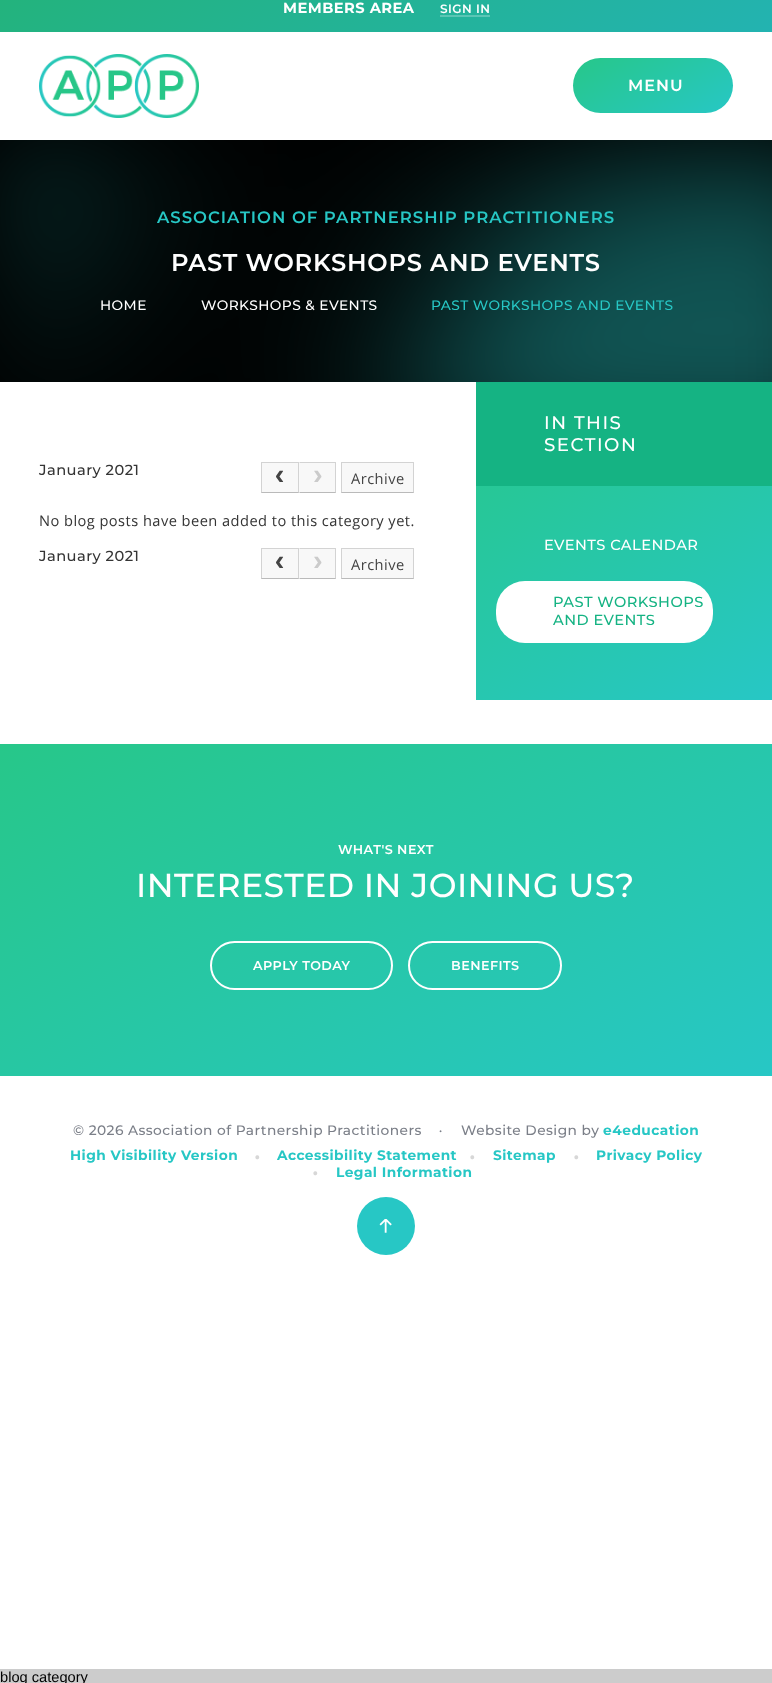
<!DOCTYPE html>
<meta charset="utf-8">
<style>body { margin: 0 } canvas { display: block }</style>
<canvas id="canvas" width="772" height="1683"></canvas>
<script type="module">
  const canvas = document.getElementById("canvas");
  const ctx = canvas.getContext("2d");
  ctx.miterLimit = 4;
  ctx.fontKerning = "normal";
  async function loadImage(src) {
    const img = new Image();
    img.src = src;
    await img.decode();
    return img;
  }
  let gradient;

  ctx.fillStyle = "#cccccc";
  ctx.fillRect(0, 0, 772, 1683);
  ctx.fillStyle = "#ffffff";
  ctx.fillRect(0, 32, 772, 1637);
  gradient = ctx.createLinearGradient(280, -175, 492, 193);
  gradient.addColorStop(0, "#23b37b");
  gradient.addColorStop(1, "#23b3b1");
  ctx.fillStyle = gradient;
  ctx.fillRect(0, 0, 772, 32);
  gradient = ctx.createLinearGradient(280, -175, 492, 193);
  gradient.addColorStop(0, "#5ac69c");
  gradient.addColorStop(1, "#5ac6c5");
  ctx.fillStyle = gradient;
  ctx.fillRect(440, 15, 50, 2);
  ctx.letterSpacing = "0.45px";
  ctx.font = "bold 14.65px Montserrat";
  ctx.fillStyle = "#ffffff";
  ctx.fillText("MEMBERS AREA", 283, 13);
  ctx.font = "600 12px Montserrat";
  ctx.fillText("SIGN IN", 440, 13);
  ctx.drawImage(await loadImage("img1.png"), 39, 54, 160, 64);
  gradient = ctx.createLinearGradient(621, 30, 685, 141);
  gradient.addColorStop(0, "#27c789");
  gradient.addColorStop(1, "#27c7c5");
  ctx.fillStyle = gradient;
  ctx.beginPath();
  ctx.roundRect(573, 58, 160, 55, 27.5);
  ctx.fill();
  ctx.letterSpacing = "1px";
  ctx.font = "600 16px Montserrat";
  ctx.fillStyle = "#ffffff";
  ctx.fillText("MENU", 628, 91);
  ctx.fillStyle = "#000000";
  ctx.fillRect(0, 140, 772, 242);
  ctx.drawImage(await loadImage("img2.png"), 0, 140, 772, 242);
  ctx.font = "600 16.5px Montserrat";
  ctx.fillStyle = "#27c7c5";
  ctx.fillText("ASSOCIATION OF PARTNERSHIP PRACTITIONERS", 157, 223);
  ctx.letterSpacing = "0.75px";
  ctx.font = "600 24.2px Montserrat";
  ctx.fillStyle = "#ffffff";
  ctx.fillText("PAST WORKSHOPS AND EVENTS", 171, 271);
  ctx.letterSpacing = "0.45px";
  ctx.font = "500 13.75px Montserrat";
  ctx.fillText("HOME", 100, 310);
  ctx.fillText("WORKSHOPS & EVENTS", 201, 310);
  ctx.fillStyle = "#27c7c5";
  ctx.fillText("PAST WORKSHOPS AND EVENTS", 431, 310);
  ctx.font = "500 14.65px Montserrat";
  ctx.fillStyle = "#353535";
  ctx.fillText("January 2021", 39, 475);
  ctx.fillStyle = "#f8f8f8";
  ctx.fillRect(261, 462, 75, 31);
  ctx.fillStyle = "#d3d3d3";
  ctx.beginPath();
  ctx.moveTo(261, 462);
  ctx.lineTo(299, 462);
  ctx.lineTo(298, 463);
  ctx.lineTo(262, 463);
  ctx.closePath();
  ctx.fill();
  ctx.fillStyle = "rgba(0, 0, 0, 0.15)";
  ctx.beginPath();
  ctx.moveTo(299, 462);
  ctx.lineTo(299, 493);
  ctx.lineTo(298, 492);
  ctx.lineTo(298, 463);
  ctx.closePath();
  ctx.fill();
  ctx.fillStyle = "rgba(0, 0, 0, 0.25)";
  ctx.beginPath();
  ctx.moveTo(299, 493);
  ctx.lineTo(261, 493);
  ctx.lineTo(262, 492);
  ctx.lineTo(298, 492);
  ctx.closePath();
  ctx.fill();
  ctx.fillStyle = "rgba(0, 0, 0, 0.15)";
  ctx.beginPath();
  ctx.moveTo(261, 493);
  ctx.lineTo(261, 462);
  ctx.lineTo(262, 463);
  ctx.lineTo(262, 492);
  ctx.closePath();
  ctx.fill();
  ctx.font = "bold 29px Liberation Mono";
  ctx.fillStyle = "#444444";
  ctx.fillText("‹", 271, 484);
  ctx.fillStyle = "#d3d3d3";
  ctx.beginPath();
  ctx.moveTo(299, 462);
  ctx.lineTo(336, 462);
  ctx.lineTo(335, 463);
  ctx.lineTo(300, 463);
  ctx.closePath();
  ctx.fill();
  ctx.fillStyle = "rgba(0, 0, 0, 0.15)";
  ctx.beginPath();
  ctx.moveTo(336, 462);
  ctx.lineTo(336, 493);
  ctx.lineTo(335, 492);
  ctx.lineTo(335, 463);
  ctx.closePath();
  ctx.fill();
  ctx.fillStyle = "rgba(0, 0, 0, 0.25)";
  ctx.beginPath();
  ctx.moveTo(336, 493);
  ctx.lineTo(299, 493);
  ctx.lineTo(300, 492);
  ctx.lineTo(335, 492);
  ctx.closePath();
  ctx.fill();
  ctx.fillStyle = "rgba(255, 255, 255, 0.15)";
  ctx.beginPath();
  ctx.moveTo(299, 493);
  ctx.lineTo(299, 462);
  ctx.lineTo(300, 463);
  ctx.lineTo(300, 492);
  ctx.closePath();
  ctx.fill();
  ctx.fillStyle = "#cbcbcb";
  ctx.fillText("›", 309, 484);
  ctx.fillStyle = "#f8f8f8";
  ctx.fillRect(341, 462, 73, 31);
  ctx.fillStyle = "#d3d3d3";
  ctx.beginPath();
  ctx.moveTo(341, 462);
  ctx.lineTo(414, 462);
  ctx.lineTo(413, 463);
  ctx.lineTo(342, 463);
  ctx.closePath();
  ctx.fill();
  ctx.fillStyle = "rgba(0, 0, 0, 0.15)";
  ctx.beginPath();
  ctx.moveTo(414, 462);
  ctx.lineTo(414, 493);
  ctx.lineTo(413, 492);
  ctx.lineTo(413, 463);
  ctx.closePath();
  ctx.fill();
  ctx.fillStyle = "rgba(0, 0, 0, 0.25)";
  ctx.beginPath();
  ctx.moveTo(414, 493);
  ctx.lineTo(341, 493);
  ctx.lineTo(342, 492);
  ctx.lineTo(413, 492);
  ctx.closePath();
  ctx.fill();
  ctx.fillStyle = "rgba(0, 0, 0, 0.15)";
  ctx.beginPath();
  ctx.moveTo(341, 493);
  ctx.lineTo(341, 462);
  ctx.lineTo(342, 463);
  ctx.lineTo(342, 492);
  ctx.closePath();
  ctx.fill();
  ctx.font = "14.65px Open Sans";
  ctx.fillStyle = "#444444";
  ctx.fillText("Archive", 351, 484);
  ctx.fillStyle = "#353535";
  ctx.fillText("No blog posts have been added to this category yet.", 39, 526);
  ctx.font = "500 14.65px Montserrat";
  ctx.fillText("January 2021", 39, 561);
  ctx.fillStyle = "#f8f8f8";
  ctx.fillRect(261, 548, 75, 31);
  ctx.fillStyle = "#d3d3d3";
  ctx.beginPath();
  ctx.moveTo(261, 548);
  ctx.lineTo(299, 548);
  ctx.lineTo(298, 549);
  ctx.lineTo(262, 549);
  ctx.closePath();
  ctx.fill();
  ctx.fillStyle = "rgba(0, 0, 0, 0.15)";
  ctx.beginPath();
  ctx.moveTo(299, 548);
  ctx.lineTo(299, 579);
  ctx.lineTo(298, 578);
  ctx.lineTo(298, 549);
  ctx.closePath();
  ctx.fill();
  ctx.fillStyle = "rgba(0, 0, 0, 0.25)";
  ctx.beginPath();
  ctx.moveTo(299, 579);
  ctx.lineTo(261, 579);
  ctx.lineTo(262, 578);
  ctx.lineTo(298, 578);
  ctx.closePath();
  ctx.fill();
  ctx.fillStyle = "rgba(0, 0, 0, 0.15)";
  ctx.beginPath();
  ctx.moveTo(261, 579);
  ctx.lineTo(261, 548);
  ctx.lineTo(262, 549);
  ctx.lineTo(262, 578);
  ctx.closePath();
  ctx.fill();
  ctx.font = "bold 29px Liberation Mono";
  ctx.fillStyle = "#444444";
  ctx.fillText("‹", 271, 570);
  ctx.fillStyle = "#d3d3d3";
  ctx.beginPath();
  ctx.moveTo(299, 548);
  ctx.lineTo(336, 548);
  ctx.lineTo(335, 549);
  ctx.lineTo(300, 549);
  ctx.closePath();
  ctx.fill();
  ctx.fillStyle = "rgba(0, 0, 0, 0.15)";
  ctx.beginPath();
  ctx.moveTo(336, 548);
  ctx.lineTo(336, 579);
  ctx.lineTo(335, 578);
  ctx.lineTo(335, 549);
  ctx.closePath();
  ctx.fill();
  ctx.fillStyle = "rgba(0, 0, 0, 0.25)";
  ctx.beginPath();
  ctx.moveTo(336, 579);
  ctx.lineTo(299, 579);
  ctx.lineTo(300, 578);
  ctx.lineTo(335, 578);
  ctx.closePath();
  ctx.fill();
  ctx.fillStyle = "rgba(255, 255, 255, 0.15)";
  ctx.beginPath();
  ctx.moveTo(299, 579);
  ctx.lineTo(299, 548);
  ctx.lineTo(300, 549);
  ctx.lineTo(300, 578);
  ctx.closePath();
  ctx.fill();
  ctx.fillStyle = "#cbcbcb";
  ctx.fillText("›", 309, 570);
  ctx.fillStyle = "#f8f8f8";
  ctx.fillRect(341, 548, 73, 31);
  ctx.fillStyle = "#d3d3d3";
  ctx.beginPath();
  ctx.moveTo(341, 548);
  ctx.lineTo(414, 548);
  ctx.lineTo(413, 549);
  ctx.lineTo(342, 549);
  ctx.closePath();
  ctx.fill();
  ctx.fillStyle = "rgba(0, 0, 0, 0.15)";
  ctx.beginPath();
  ctx.moveTo(414, 548);
  ctx.lineTo(414, 579);
  ctx.lineTo(413, 578);
  ctx.lineTo(413, 549);
  ctx.closePath();
  ctx.fill();
  ctx.fillStyle = "rgba(0, 0, 0, 0.25)";
  ctx.beginPath();
  ctx.moveTo(414, 579);
  ctx.lineTo(341, 579);
  ctx.lineTo(342, 578);
  ctx.lineTo(413, 578);
  ctx.closePath();
  ctx.fill();
  ctx.fillStyle = "rgba(0, 0, 0, 0.15)";
  ctx.beginPath();
  ctx.moveTo(341, 579);
  ctx.lineTo(341, 548);
  ctx.lineTo(342, 549);
  ctx.lineTo(342, 578);
  ctx.closePath();
  ctx.fill();
  ctx.font = "14.65px Open Sans";
  ctx.fillStyle = "#444444";
  ctx.fillText("Archive", 351, 570);
  ctx.fillStyle = "#15b383";
  ctx.fillRect(476, 382, 296, 104);
  ctx.letterSpacing = "1.5px";
  ctx.font = "500 18.25px Montserrat";
  ctx.fillStyle = "#ffffff";
  ctx.fillText("IN THIS", 544, 429);
  ctx.fillText("SECTION", 544, 451);
  gradient = ctx.createLinearGradient(519, 357, 731, 725);
  gradient.addColorStop(0, "#27c789");
  gradient.addColorStop(1, "#27c7c5");
  ctx.fillStyle = gradient;
  ctx.fillRect(476, 486, 296, 214);
  ctx.letterSpacing = "0.45px";
  ctx.font = "500 14.65px Montserrat";
  ctx.fillStyle = "#ffffff";
  ctx.fillText("EVENTS CALENDAR", 544, 550);
  ctx.beginPath();
  ctx.roundRect(496, 581, 217, 62, 29);
  ctx.fill();
  ctx.fillStyle = "#15b383";
  ctx.fillText("PAST WORKSHOPS", 553, 607);
  ctx.fillText("AND EVENTS", 553, 625);
  gradient = ctx.createLinearGradient(218, 618, 554, 1202);
  gradient.addColorStop(0, "#27c789");
  gradient.addColorStop(1, "#27c7c5");
  ctx.fillStyle = gradient;
  ctx.fillRect(0, 744, 772, 332);
  ctx.font = "600 12.75px Montserrat";
  ctx.fillStyle = "#ffffff";
  ctx.fillText("WHAT'S NEXT", 338, 854);
  ctx.font = "500 33.1px Montserrat";
  ctx.fillText("INTERESTED IN JOINING US?", 136, 897);
  ctx.beginPath();
  ctx.roundRect(211, 942, 181, 47, 23.5);
  ctx.strokeStyle = "#ffffff";
  ctx.lineWidth = 2;
  ctx.stroke();
  ctx.font = "600 12.75px Montserrat";
  ctx.fillText("APPLY TODAY", 253, 970);
  ctx.beginPath();
  ctx.roundRect(409, 942, 152, 47, 23.5);
  ctx.stroke();
  ctx.fillText("BENEFITS", 451, 970);
  ctx.font = "500 13.75px Montserrat";
  ctx.fillStyle = "#7b7f88";
  ctx.fillText("© 2026 Association of Partnership Practitioners", 73, 1135);
  ctx.letterSpacing = "0px";
  ctx.font = "500 10px Montserrat";
  ctx.fillText("•", 439, 1134);
  ctx.letterSpacing = "0.45px";
  ctx.font = "500 13.75px Montserrat";
  ctx.fillText("Website Design by", 461, 1135);
  ctx.font = "bold 13.75px Montserrat";
  ctx.fillStyle = "#27c7c5";
  ctx.fillText("e4education", 603, 1135);
  ctx.fillText("High Visibility Version", 70, 1160);
  ctx.letterSpacing = "1px";
  ctx.font = "500 21px Montserrat";
  ctx.fillStyle = "#d7d7d7";
  ctx.fillText("•", 254, 1163);
  ctx.letterSpacing = "0.45px";
  ctx.font = "bold 13.75px Montserrat";
  ctx.fillStyle = "#27c7c5";
  ctx.fillText("Accessibility Statement", 277, 1160);
  ctx.letterSpacing = "1px";
  ctx.font = "500 21px Montserrat";
  ctx.fillStyle = "#d7d7d7";
  ctx.fillText("•", 469, 1163);
  ctx.letterSpacing = "0.45px";
  ctx.font = "bold 13.75px Montserrat";
  ctx.fillStyle = "#27c7c5";
  ctx.fillText("Sitemap", 493, 1160);
  ctx.letterSpacing = "1px";
  ctx.font = "500 21px Montserrat";
  ctx.fillStyle = "#d7d7d7";
  ctx.fillText("•", 573, 1163);
  ctx.letterSpacing = "0.45px";
  ctx.font = "bold 13.75px Montserrat";
  ctx.fillStyle = "#27c7c5";
  ctx.fillText("Privacy Policy", 596, 1160);
  ctx.letterSpacing = "1px";
  ctx.font = "500 21px Montserrat";
  ctx.fillStyle = "#d7d7d7";
  ctx.fillText("•", 312, 1179);
  ctx.letterSpacing = "0.45px";
  ctx.font = "bold 13.75px Montserrat";
  ctx.fillStyle = "#27c7c5";
  ctx.fillText("Legal Information", 336, 1177);
  ctx.beginPath();
  ctx.arc(386, 1226, 29, 0, Math.PI * 2);
  ctx.fill();
  ctx.drawImage(await loadImage("img3.png"), 379, 1219, 13, 14);
  ctx.letterSpacing = "0px";
  ctx.font = "14.65px Liberation Sans";
  ctx.fillStyle = "#000000";
  ctx.fillText("blog category", 0, 1682);
</script>
